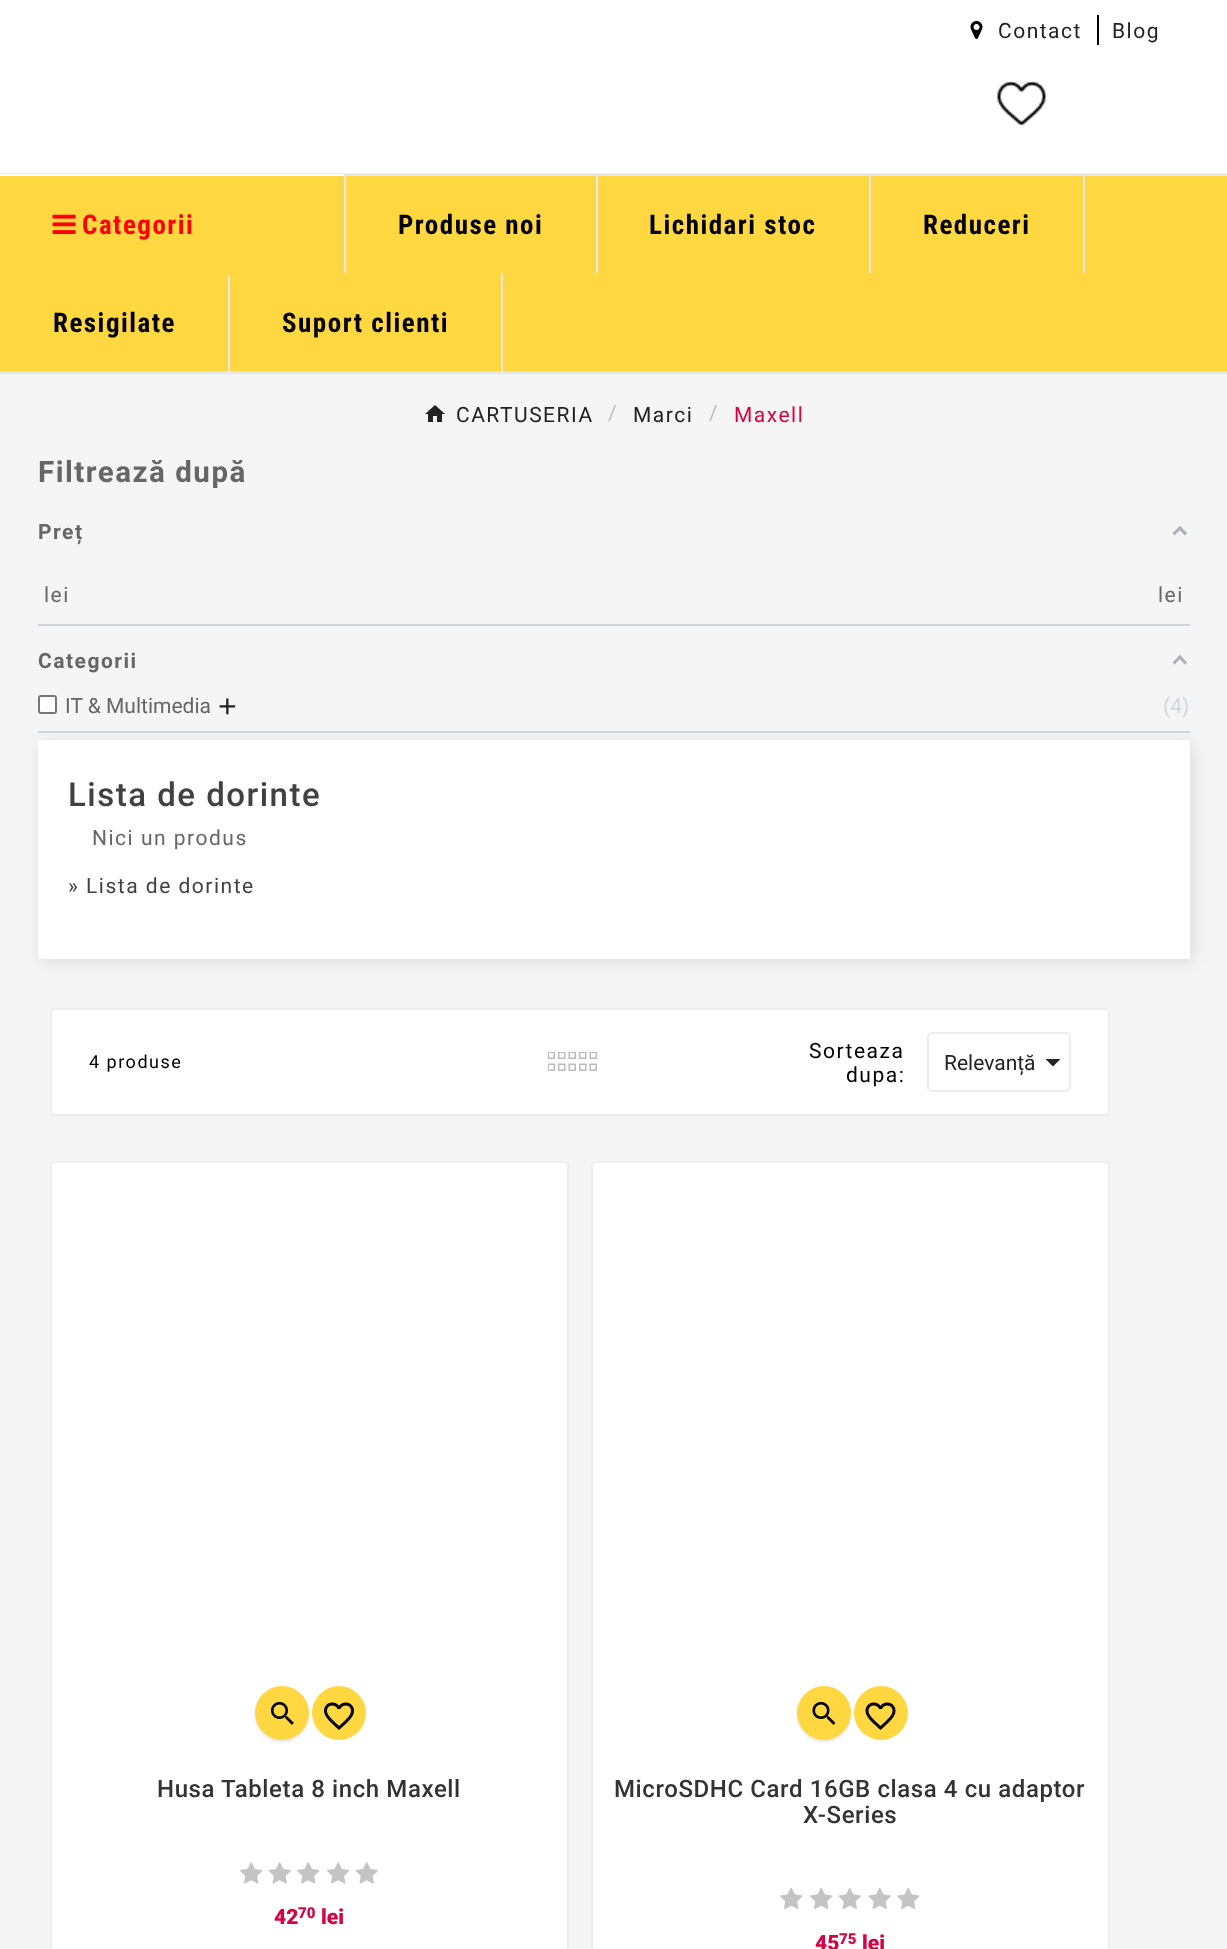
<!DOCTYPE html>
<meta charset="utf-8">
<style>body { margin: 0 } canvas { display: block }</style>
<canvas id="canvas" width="1227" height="1949"></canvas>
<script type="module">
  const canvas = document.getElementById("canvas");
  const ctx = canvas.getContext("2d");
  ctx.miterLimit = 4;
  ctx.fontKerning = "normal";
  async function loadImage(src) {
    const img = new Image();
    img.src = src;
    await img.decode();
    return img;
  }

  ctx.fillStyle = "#f5f5f5";
  ctx.fillRect(0, 0, 1227, 1949);
  ctx.fillStyle = "#ffffff";
  ctx.fillRect(0, 0, 1227, 173);
  ctx.fillStyle = "#e5e5e5";
  ctx.fillRect(0, 373, 1227, 1);
  ctx.fillStyle = "#ededed";
  ctx.fillRect(0, 173, 1227, 1);
  ctx.drawImage(await loadImage("img1.png"), 970, 21, 13, 18);
  ctx.letterSpacing = "1.5px";
  ctx.font = "21px Roboto";
  ctx.fillStyle = "#222222";
  ctx.fillText("Contact", 998, 38);
  ctx.fillStyle = "#000000";
  ctx.fillRect(1097, 15, 2, 30);
  ctx.fillStyle = "#222222";
  ctx.fillText("Blog", 1112, 38);
  ctx.drawImage(await loadImage("img2.png"), 997, 81, 49, 45);
  ctx.fillStyle = "#e7e7e7";
  ctx.fillRect(344, 174, 883, 2);
  ctx.fillRect(0, 371, 1227, 2);
  ctx.fillStyle = "#ffd741";
  ctx.fillRect(0, 176, 1227, 195);
  ctx.fillStyle = "#e7e7e7";
  ctx.fillRect(344, 176, 2, 97);
  ctx.fillStyle = "#ffffff";
  ctx.fillRect(0, 174, 344, 2);
  ctx.drawImage(await loadImage("img3.png"), 52, 214, 24, 20);
  ctx.font = "bold 27px Roboto Condensed";
  ctx.fillStyle = "#ff0000";
  ctx.fillText("Categorii", 82, 234);
  ctx.fillStyle = "#e7e7e7";
  ctx.fillRect(228, 273, 2, 98);
  ctx.fillStyle = "#ffd741";
  ctx.fillRect(228, 273, 2, 2);
  ctx.fillStyle = "#e7e7e7";
  ctx.fillRect(596, 176, 2, 97);
  ctx.fillStyle = "#000000";
  ctx.fillText("Produse noi", 398, 234);
  ctx.fillStyle = "#e7e7e7";
  ctx.fillRect(869, 176, 2, 97);
  ctx.fillStyle = "#000000";
  ctx.fillText("Lichidari stoc", 649, 234);
  ctx.fillStyle = "#e7e7e7";
  ctx.fillRect(1083, 176, 2, 97);
  ctx.fillStyle = "#000000";
  ctx.fillText("Reduceri", 923, 234);
  ctx.fillText("Resigilate", 53, 332);
  ctx.fillStyle = "#e7e7e7";
  ctx.fillRect(501, 273, 2, 98);
  ctx.fillStyle = "#000000";
  ctx.fillText("Suport clienti", 282, 332);
  ctx.drawImage(await loadImage("img4.png"), 425, 405, 20, 17);
  ctx.font = "21px Roboto";
  ctx.fillStyle = "#222222";
  ctx.fillText("CARTUSERIA", 456, 422);
  ctx.fillStyle = "#bdbdbd";
  ctx.fillText("/", 608, 420);
  ctx.fillStyle = "#222222";
  ctx.fillText("Marci", 633, 422);
  ctx.fillStyle = "#bdbdbd";
  ctx.fillText("/", 709, 420);
  ctx.fillStyle = "#d90244";
  ctx.fillText("Maxell", 734, 422);
  ctx.font = "bold 29.5px Roboto";
  ctx.fillStyle = "#666666";
  ctx.fillText("Filtrează după", 38, 482);
  ctx.fillStyle = "#d0d5db";
  ctx.fillRect(38, 624, 1152, 2);
  ctx.font = "bold 21px Roboto";
  ctx.fillStyle = "#666666";
  ctx.fillText("Preț", 38, 539);
  ctx.fillStyle = "#aab2bd";
  ctx.beginPath();
  ctx.moveTo(1180, 526);
  ctx.lineTo(1187, 533);
  ctx.lineTo(1185, 535.5);
  ctx.lineTo(1177.5, 528);
  ctx.closePath();
  ctx.fill();
  ctx.beginPath();
  ctx.moveTo(1180, 526);
  ctx.lineTo(1182, 528);
  ctx.lineTo(1174.5, 535.5);
  ctx.lineTo(1172.5, 533);
  ctx.closePath();
  ctx.fill();
  ctx.font = "21px Roboto";
  ctx.fillStyle = "#666666";
  ctx.fillText("lei", 44, 602);
  ctx.fillText("lei", 1158, 602);
  ctx.fillStyle = "rgba(0, 0, 0, 0.1)";
  ctx.filter = "blur(8px)";
  ctx.beginPath();
  ctx.rect(41, 743, 1152, 219);
  ctx.fill();
  ctx.filter = "none";
  ctx.fillStyle = "#d0d5db";
  ctx.fillRect(38, 731, 1152, 2);
  ctx.font = "bold 21px Roboto";
  ctx.fillStyle = "#666666";
  ctx.fillText("Categorii", 38, 668);
  ctx.fillStyle = "#aab2bd";
  ctx.beginPath();
  ctx.moveTo(1180, 655);
  ctx.lineTo(1187, 662.5);
  ctx.lineTo(1185, 664.5);
  ctx.lineTo(1177.5, 657);
  ctx.closePath();
  ctx.fill();
  ctx.beginPath();
  ctx.moveTo(1180, 655);
  ctx.lineTo(1182, 657);
  ctx.lineTo(1174.5, 664.5);
  ctx.lineTo(1172.5, 662.5);
  ctx.closePath();
  ctx.fill();
  ctx.fillStyle = "#ffffff";
  ctx.beginPath();
  ctx.roundRect(39, 696, 17, 17, 2);
  ctx.fill();
  ctx.strokeStyle = "#767676";
  ctx.lineWidth = 2;
  ctx.stroke();
  ctx.letterSpacing = "0px";
  ctx.font = "21px Roboto";
  ctx.fillStyle = "#666666";
  ctx.fillText("IT & Multimedia", 65, 713);
  ctx.font = "32px Liberation Sans";
  ctx.fillStyle = "#222222";
  ctx.fillText("+", 218, 717);
  ctx.font = "21px Roboto";
  ctx.fillStyle = "#d0d5db";
  ctx.fillText("(4)", 1163, 713);
  ctx.fillStyle = "#ffffff";
  ctx.fillRect(38, 740, 1152, 219);
  ctx.letterSpacing = "1.5px";
  ctx.font = "500 33px Roboto";
  ctx.fillStyle = "#414141";
  ctx.fillText("Lista de dorinte", 68, 806);
  ctx.font = "21px Roboto";
  ctx.fillStyle = "#666666";
  ctx.fillText("Nici un produs", 92, 845);
  ctx.fillStyle = "#414141";
  ctx.fillText("» Lista de dorinte", 68, 893);
  ctx.fillStyle = "#ffffff";
  ctx.beginPath();
  ctx.roundRect(50, 1008, 1060, 108, 5);
  ctx.fill();
  ctx.beginPath();
  ctx.roundRect(51, 1009, 1058, 106, 4);
  ctx.strokeStyle = "rgba(0, 0, 0, 0.07)";
  ctx.stroke();
  ctx.font = "18px Roboto";
  ctx.fillStyle = "#000000";
  ctx.fillText("4 produse", 89, 1068);
  ctx.drawImage(await loadImage("img5.png"), 548, 1052, 49, 19);
  ctx.font = "21px Roboto";
  ctx.fillText("Sorteaza", 809, 1058);
  ctx.fillText("dupa:", 846, 1082);
  ctx.beginPath();
  ctx.roundRect(928, 1033, 142, 58, 4);
  ctx.strokeStyle = "#ededed";
  ctx.stroke();
  ctx.letterSpacing = "0px";
  ctx.fillStyle = "#222222";
  ctx.fillText("Relevanță", 944, 1070);
  ctx.fillStyle = "#232323";
  ctx.beginPath();
  ctx.moveTo(1045.5, 1059);
  ctx.lineTo(1060.5, 1059);
  ctx.lineTo(1053, 1066.5);
  ctx.closePath();
  ctx.fill();
  ctx.fillStyle = "#ffffff";
  ctx.beginPath();
  ctx.roundRect(50, 1161, 519, 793, 5);
  ctx.fill();
  ctx.beginPath();
  ctx.roundRect(51, 1162, 517, 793, 4);
  ctx.strokeStyle = "rgba(0, 0, 0, 0.07)";
  ctx.stroke();
  ctx.fillStyle = "rgba(0, 0, 0, 0.1)";
  ctx.filter = "blur(1.5px)";
  ctx.beginPath();
  ctx.roundRect(255, 1688, 54, 54, 27);
  ctx.fill();
  ctx.filter = "none";
  ctx.fillStyle = "#ffd741";
  ctx.beginPath();
  ctx.arc(282, 1713, 27, 0, Math.PI * 2);
  ctx.fill();
  ctx.drawImage(await loadImage("img6.png"), 270, 1701, 24, 24);
  ctx.beginPath();
  ctx.arc(339, 1713, 27, 0, Math.PI * 2);
  ctx.fill();
  ctx.drawImage(await loadImage("img7.png"), 324, 1702, 30, 28);
  ctx.letterSpacing = "0.6px";
  ctx.font = "500 24px Roboto";
  ctx.fillStyle = "#333333";
  ctx.fillText("Husa Tableta 8 inch Maxell", 157, 1797);
  ctx.drawImage(await loadImage("img8.png"), 240, 1862, 23, 22);
  ctx.drawImage(await loadImage("img9.png"), 268, 1862, 23, 22);
  ctx.drawImage(await loadImage("img8.png"), 297, 1862, 23, 22);
  ctx.drawImage(await loadImage("img8.png"), 327, 1862, 23, 22);
  ctx.drawImage(await loadImage("img9.png"), 355, 1862, 23, 22);
  ctx.letterSpacing = "0px";
  ctx.font = "900 21px Roboto";
  ctx.fillStyle = "#d90244";
  ctx.fillText("42", 274, 1924);
  ctx.font = "900 15px Roboto";
  ctx.fillText("70", 298, 1918);
  ctx.font = "900 21px Roboto";
  ctx.fillText("lei", 321, 1924);
  ctx.fillStyle = "#ffffff";
  ctx.beginPath();
  ctx.roundRect(591, 1161, 519, 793, 5);
  ctx.fill();
  ctx.beginPath();
  ctx.roundRect(592, 1162, 517, 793, 4);
  ctx.stroke();
  ctx.fillStyle = "rgba(0, 0, 0, 0.1)";
  ctx.filter = "blur(1.5px)";
  ctx.beginPath();
  ctx.roundRect(797, 1688, 54, 54, 27);
  ctx.fill();
  ctx.filter = "none";
  ctx.fillStyle = "#ffd741";
  ctx.beginPath();
  ctx.arc(824, 1713, 27, 0, Math.PI * 2);
  ctx.fill();
  ctx.drawImage(await loadImage("img10.png"), 812, 1701, 24, 24);
  ctx.beginPath();
  ctx.arc(881, 1713, 27, 0, Math.PI * 2);
  ctx.fill();
  ctx.drawImage(await loadImage("img11.png"), 865, 1702, 31, 28);
  ctx.letterSpacing = "0.6px";
  ctx.font = "500 24px Roboto";
  ctx.fillStyle = "#333333";
  ctx.fillText("MicroSDHC Card 16GB clasa 4 cu adaptor", 614, 1797);
  ctx.fillText("X-Series", 803, 1823);
  ctx.drawImage(await loadImage("img12.png"), 780, 1887, 23, 22);
  ctx.drawImage(await loadImage("img12.png"), 810, 1887, 23, 22);
  ctx.drawImage(await loadImage("img13.png"), 838, 1887, 23, 22);
  ctx.drawImage(await loadImage("img13.png"), 868, 1887, 23, 22);
  ctx.drawImage(await loadImage("img12.png"), 897, 1887, 23, 22);
  ctx.letterSpacing = "0px";
  ctx.font = "900 21px Roboto";
  ctx.fillStyle = "#d90244";
  ctx.fillText("45", 815, 1950);
  ctx.font = "900 15px Roboto";
  ctx.fillText("75", 839, 1944);
  ctx.font = "900 21px Roboto";
  ctx.fillText("lei", 862, 1950);
</script>
